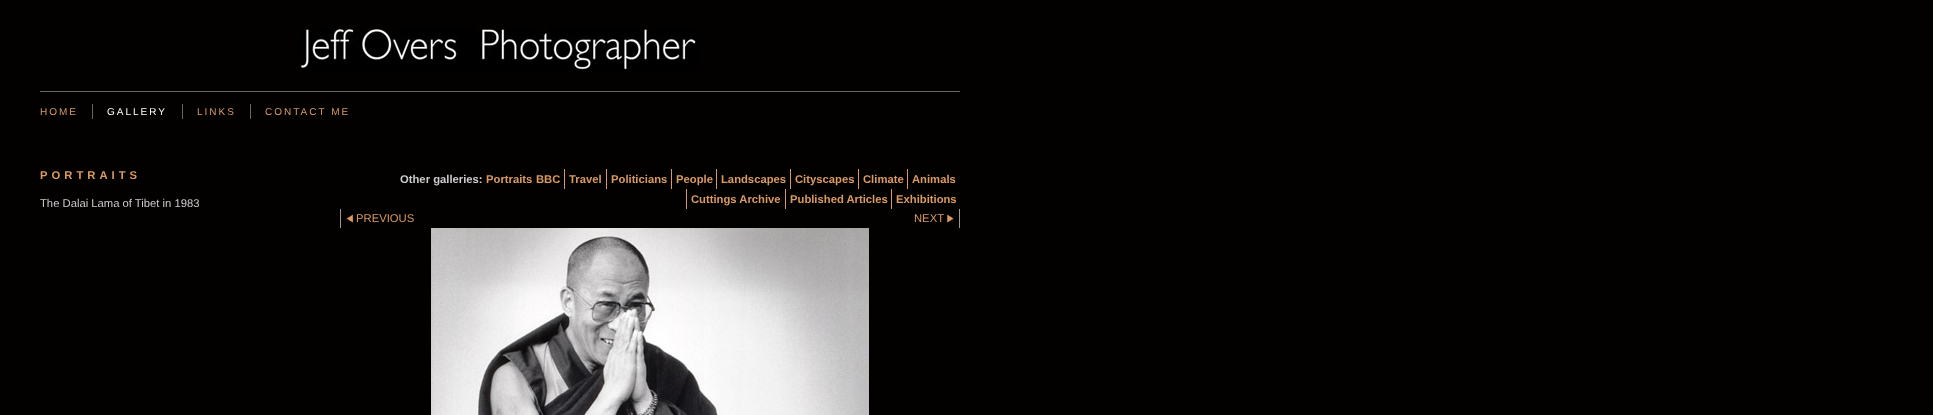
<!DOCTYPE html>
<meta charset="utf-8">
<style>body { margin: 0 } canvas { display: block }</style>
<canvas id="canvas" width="1933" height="415"></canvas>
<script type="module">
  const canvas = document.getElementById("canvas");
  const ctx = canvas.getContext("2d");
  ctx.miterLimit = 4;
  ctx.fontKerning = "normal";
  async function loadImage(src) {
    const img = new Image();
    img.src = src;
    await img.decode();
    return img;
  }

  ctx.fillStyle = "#030000";
  ctx.fillRect(0, 0, 1933, 415);
  ctx.fillStyle = "#666666";
  ctx.fillRect(40, 91, 920, 1);
  ctx.drawImage(await loadImage("img1.png"), 300, 28, 399, 42);
  ctx.letterSpacing = "2px";
  ctx.font = "10px Liberation Sans";
  ctx.fillStyle = "#da9b62";
  ctx.fillText("HOME", 40, 115);
  ctx.fillStyle = "#666666";
  ctx.fillRect(92, 104, 1, 15);
  ctx.fillStyle = "#ffffff";
  ctx.fillText("GALLERY", 107, 115);
  ctx.fillStyle = "#666666";
  ctx.fillRect(182, 104, 1, 15);
  ctx.fillStyle = "#da9b62";
  ctx.fillText("LINKS", 197, 115);
  ctx.fillStyle = "#666666";
  ctx.fillRect(250, 104, 1, 15);
  ctx.fillStyle = "#da9b62";
  ctx.fillText("CONTACT ME", 265, 115);
  ctx.letterSpacing = "4px";
  ctx.font = "bold 11.25px Liberation Sans";
  ctx.fillText("PORTRAITS", 40, 179);
  ctx.letterSpacing = "0px";
  ctx.font = "11.25px Liberation Sans";
  ctx.fillStyle = "#cccccc";
  ctx.fillText("The Dalai Lama of Tibet in 1983", 40, 207);
  ctx.font = "bold 11.25px Liberation Sans";
  ctx.fillText("Other galleries:", 400, 183);
  ctx.fillStyle = "#da9b62";
  ctx.fillText("Portraits", 486, 183);
  ctx.fillText("BBC", 536, 183);
  ctx.fillRect(564, 169, 1, 20);
  ctx.fillText("Travel", 569, 183);
  ctx.fillRect(606, 169, 1, 20);
  ctx.fillText("Politicians", 611, 183);
  ctx.fillRect(671, 169, 1, 20);
  ctx.fillText("People", 676, 183);
  ctx.fillRect(716, 169, 1, 20);
  ctx.fillText("Landscapes", 721, 183);
  ctx.fillRect(790, 169, 1, 20);
  ctx.fillText("Cityscapes", 795, 183);
  ctx.fillRect(858, 169, 1, 20);
  ctx.fillText("Climate", 863, 183);
  ctx.fillRect(907, 169, 1, 20);
  ctx.fillText("Animals", 912, 183);
  ctx.fillRect(686, 189, 1, 20);
  ctx.fillText("Cuttings Archive", 691, 203);
  ctx.fillRect(785, 189, 1, 20);
  ctx.fillText("Published Articles", 790, 203);
  ctx.fillRect(891, 189, 1, 20);
  ctx.fillText("Exhibitions", 896, 203);
  ctx.fillStyle = "#999999";
  ctx.fillRect(340, 209, 1, 19);
  ctx.drawImage(await loadImage("img2.png"), 346, 214, 7, 9);
  ctx.font = "11.25px Liberation Sans";
  ctx.fillStyle = "#da9b62";
  ctx.fillText("PREVIOUS", 356, 222);
  ctx.fillStyle = "#999999";
  ctx.fillRect(959, 209, 1, 19);
  ctx.fillStyle = "#da9b62";
  ctx.fillText("NEXT", 914, 222);
  ctx.drawImage(await loadImage("img3.png"), 947, 214, 7, 9);
  ctx.drawImage(await loadImage("img4.png"), 431, 228, 438, 187);
</script>
